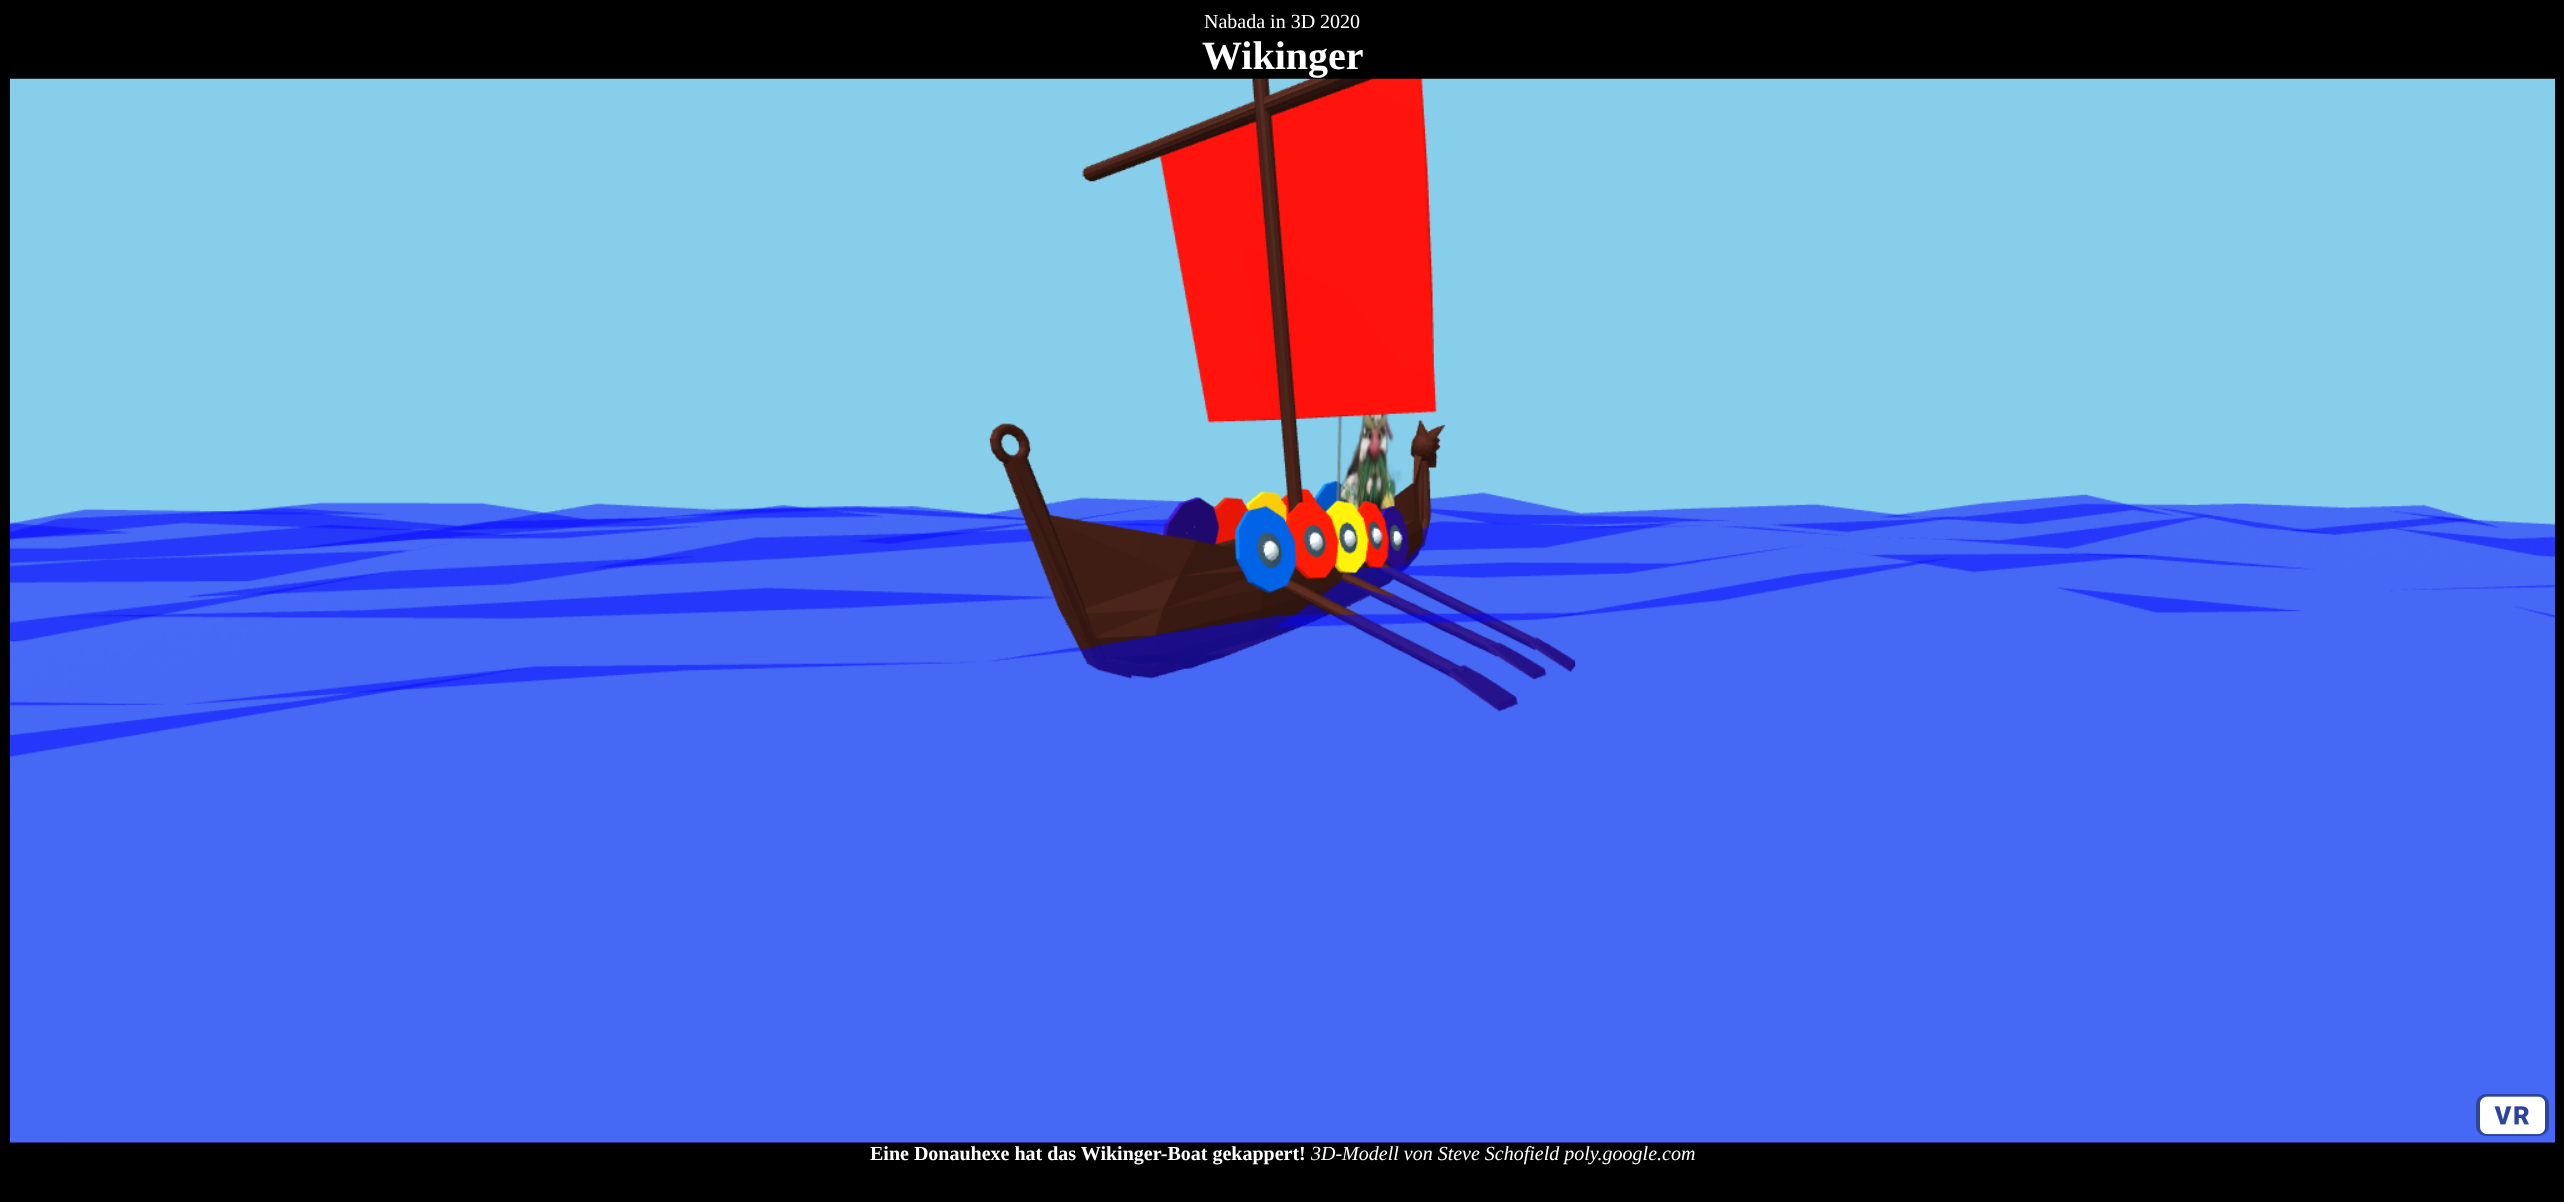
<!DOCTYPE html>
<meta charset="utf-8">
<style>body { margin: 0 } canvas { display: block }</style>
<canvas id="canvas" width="2564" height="1202"></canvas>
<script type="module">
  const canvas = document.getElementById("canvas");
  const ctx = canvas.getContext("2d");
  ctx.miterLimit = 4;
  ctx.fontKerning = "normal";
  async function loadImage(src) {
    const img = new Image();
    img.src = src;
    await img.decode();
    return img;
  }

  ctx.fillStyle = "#000000";
  ctx.fillRect(0, 0, 2564, 1202);
  ctx.font = "20px Liberation Serif";
  ctx.fillStyle = "#ffffff";
  ctx.fillText("Nabada in 3D 2020", 1204, 28);
  ctx.font = "bold 40px Liberation Serif";
  ctx.fillText("Wikinger", 1202, 69);
  ctx.drawImage(await loadImage("img1.png"), 10, 78, 2545, 1065);
  ctx.fillStyle = "#2d449f";
  ctx.beginPath();
  ctx.roundRect(2476, 1094, 73, 42, 10);
  ctx.fill();
  ctx.drawImage(await loadImage("img2.png"), 2480, 1096, 65, 39);
  ctx.font = "bold 20px Liberation Serif";
  ctx.fillStyle = "#ffffff";
  ctx.fillText("Eine Donauhexe hat das Wikinger-Boat gekappert!", 870, 1160);
  ctx.font = "italic 20px Liberation Serif";
  ctx.fillText("3D-Modell von Steve Schofield poly.google.com", 1311, 1160);
</script>
